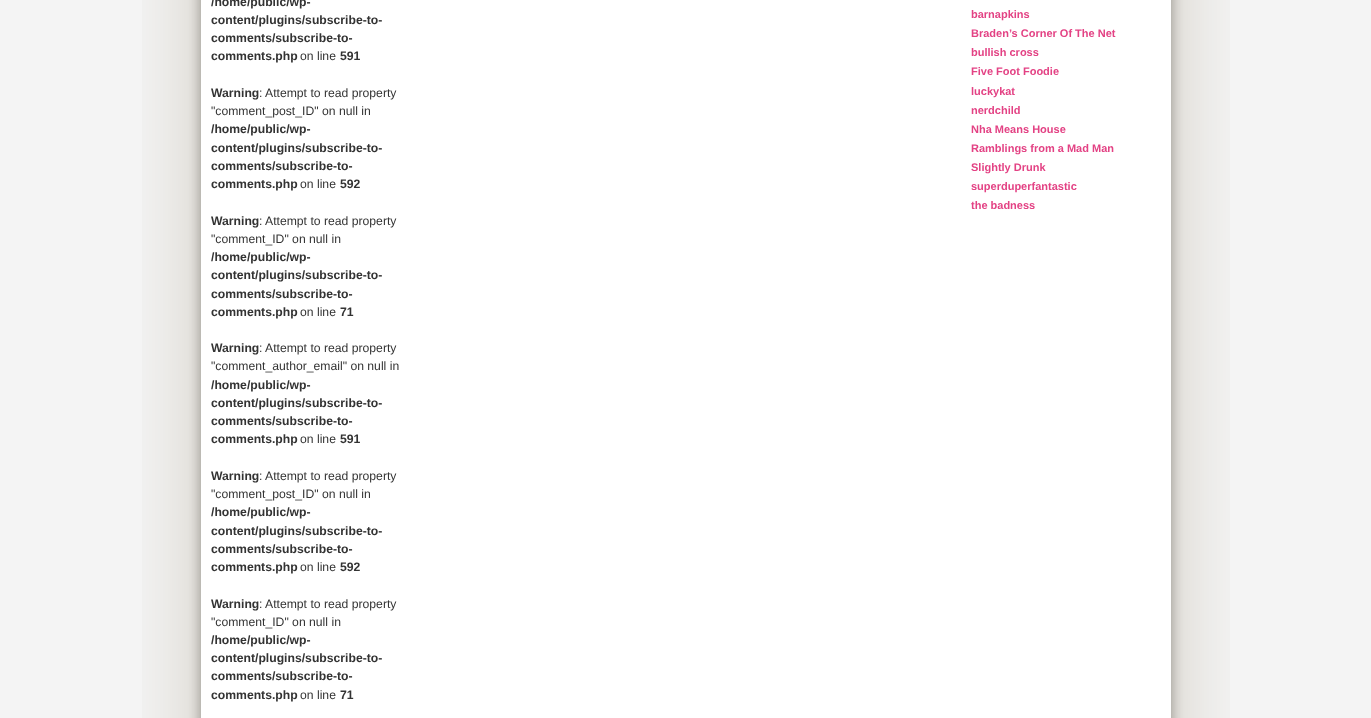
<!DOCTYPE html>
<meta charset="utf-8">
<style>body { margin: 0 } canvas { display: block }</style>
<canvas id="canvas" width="1371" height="718"></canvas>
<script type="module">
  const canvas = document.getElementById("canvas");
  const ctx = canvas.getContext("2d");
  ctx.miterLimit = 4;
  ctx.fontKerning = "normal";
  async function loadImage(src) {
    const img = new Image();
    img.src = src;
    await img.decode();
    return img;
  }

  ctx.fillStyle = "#f4f4f4";
  ctx.fillRect(0, 0, 1371, 718);
  ctx.drawImage(await loadImage("img1.png"), 142, 0, 1088, 718);
  ctx.font = "bold 12.2px Liberation Sans";
  ctx.fillStyle = "#333333";
  ctx.fillText("/home/public/wp-", 211, 6);
  ctx.fillText("content/plugins/subscribe-to-", 211, 24);
  ctx.fillText("comments/subscribe-to-", 211, 42);
  ctx.fillText("comments.php", 211, 60);
  ctx.font = "12.2px Liberation Sans";
  ctx.fillText("on line", 300, 60);
  ctx.font = "bold 12.2px Liberation Sans";
  ctx.fillText("591", 340, 60);
  ctx.fillText("Warning", 211, 97);
  ctx.font = "12.2px Liberation Sans";
  ctx.fillText(":", 259, 97);
  ctx.fillText("Attempt to read property", 265, 97);
  ctx.fillText("\"comment_post_ID\" on null in", 211, 115);
  ctx.font = "bold 12.2px Liberation Sans";
  ctx.fillText("/home/public/wp-", 211, 133);
  ctx.fillText("content/plugins/subscribe-to-", 211, 152);
  ctx.fillText("comments/subscribe-to-", 211, 170);
  ctx.fillText("comments.php", 211, 188);
  ctx.font = "12.2px Liberation Sans";
  ctx.fillText("on line", 300, 188);
  ctx.font = "bold 12.2px Liberation Sans";
  ctx.fillText("592", 340, 188);
  ctx.fillText("Warning", 211, 225);
  ctx.font = "12.2px Liberation Sans";
  ctx.fillText(":", 259, 225);
  ctx.fillText("Attempt to read property", 265, 225);
  ctx.fillText("\"comment_ID\" on null in", 211, 243);
  ctx.font = "bold 12.2px Liberation Sans";
  ctx.fillText("/home/public/wp-", 211, 261);
  ctx.fillText("content/plugins/subscribe-to-", 211, 279);
  ctx.fillText("comments/subscribe-to-", 211, 298);
  ctx.fillText("comments.php", 211, 316);
  ctx.font = "12.2px Liberation Sans";
  ctx.fillText("on line", 300, 316);
  ctx.font = "bold 12.2px Liberation Sans";
  ctx.fillText("71", 340, 316);
  ctx.fillText("Warning", 211, 352);
  ctx.font = "12.2px Liberation Sans";
  ctx.fillText(":", 259, 352);
  ctx.fillText("Attempt to read property", 265, 352);
  ctx.fillText("\"comment_author_email\" on null in", 211, 370);
  ctx.font = "bold 12.2px Liberation Sans";
  ctx.fillText("/home/public/wp-", 211, 389);
  ctx.fillText("content/plugins/subscribe-to-", 211, 407);
  ctx.fillText("comments/subscribe-to-", 211, 425);
  ctx.fillText("comments.php", 211, 443);
  ctx.font = "12.2px Liberation Sans";
  ctx.fillText("on line", 300, 443);
  ctx.font = "bold 12.2px Liberation Sans";
  ctx.fillText("591", 340, 443);
  ctx.fillText("Warning", 211, 480);
  ctx.font = "12.2px Liberation Sans";
  ctx.fillText(":", 259, 480);
  ctx.fillText("Attempt to read property", 265, 480);
  ctx.fillText("\"comment_post_ID\" on null in", 211, 498);
  ctx.font = "bold 12.2px Liberation Sans";
  ctx.fillText("/home/public/wp-", 211, 516);
  ctx.fillText("content/plugins/subscribe-to-", 211, 535);
  ctx.fillText("comments/subscribe-to-", 211, 553);
  ctx.fillText("comments.php", 211, 571);
  ctx.font = "12.2px Liberation Sans";
  ctx.fillText("on line", 300, 571);
  ctx.font = "bold 12.2px Liberation Sans";
  ctx.fillText("592", 340, 571);
  ctx.fillText("Warning", 211, 608);
  ctx.font = "12.2px Liberation Sans";
  ctx.fillText(":", 259, 608);
  ctx.fillText("Attempt to read property", 265, 608);
  ctx.fillText("\"comment_ID\" on null in", 211, 626);
  ctx.font = "bold 12.2px Liberation Sans";
  ctx.fillText("/home/public/wp-", 211, 644);
  ctx.fillText("content/plugins/subscribe-to-", 211, 662);
  ctx.fillText("comments/subscribe-to-", 211, 680);
  ctx.fillText("comments.php", 211, 699);
  ctx.font = "12.2px Liberation Sans";
  ctx.fillText("on line", 300, 699);
  ctx.font = "bold 12.2px Liberation Sans";
  ctx.fillText("71", 340, 699);
  ctx.font = "bold 11px Liberation Sans";
  ctx.fillStyle = "#e34284";
  ctx.fillText("barnapkins", 971, 18);
  ctx.fillText("Braden’s Corner Of The Net", 971, 37);
  ctx.fillText("bullish cross", 971, 56);
  ctx.fillText("Five Foot Foodie", 971, 75);
  ctx.fillText("luckykat", 971, 95);
  ctx.fillText("nerdchild", 971, 114);
  ctx.fillText("Nha Means House", 971, 133);
  ctx.fillText("Ramblings from a Mad Man", 971, 152);
  ctx.fillText("Slightly Drunk", 971, 171);
  ctx.fillText("superduperfantastic", 971, 190);
  ctx.fillText("the badness", 971, 209);
</script>
